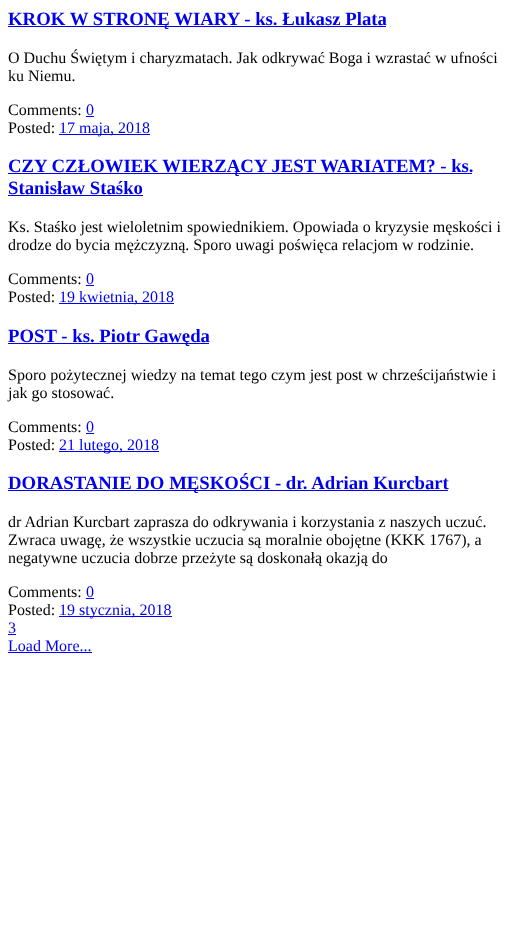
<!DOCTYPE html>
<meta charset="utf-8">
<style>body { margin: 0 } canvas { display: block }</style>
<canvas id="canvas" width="516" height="947"></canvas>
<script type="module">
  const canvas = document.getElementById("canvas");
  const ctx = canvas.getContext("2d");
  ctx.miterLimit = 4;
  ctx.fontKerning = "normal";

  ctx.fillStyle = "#ffffff";
  ctx.fillRect(0, 0, 516, 947);
  ctx.fillStyle = "#0000ee";
  ctx.fillRect(8, 26, 378, 1);
  ctx.font = "bold 18.75px Liberation Serif";
  ctx.fillText("KROK W STRONĘ WIARY - ks. Łukasz Plata", 8, 25);
  ctx.font = "16px Liberation Serif";
  ctx.fillStyle = "#000000";
  ctx.fillText("O Duchu Świętym i charyzmatach. Jak odkrywać Boga i wzrastać w ufności", 8, 63);
  ctx.fillText("ku Niemu.", 8, 81);
  ctx.fillText("Comments:", 8, 115);
  ctx.fillStyle = "#0000ee";
  ctx.fillText("0", 86, 115);
  ctx.fillRect(86, 116, 8, 1);
  ctx.fillStyle = "#000000";
  ctx.fillText("Posted:", 8, 133);
  ctx.fillStyle = "#0000ee";
  ctx.fillRect(59, 134, 91, 1);
  ctx.fillText("17 maja, 2018", 59, 133);
  ctx.fillRect(8, 173, 464, 1);
  ctx.font = "bold 18.75px Liberation Serif";
  ctx.fillText("CZY CZŁOWIEK WIERZĄCY JEST WARIATEM? - ks.", 8, 172);
  ctx.fillText("Stanisław Staśko", 8, 194);
  ctx.fillRect(8, 195, 135, 1);
  ctx.font = "16px Liberation Serif";
  ctx.fillStyle = "#000000";
  ctx.fillText("Ks. Staśko jest wieloletnim spowiednikiem. Opowiada o kryzysie męskości i", 8, 232);
  ctx.fillText("drodze do bycia mężczyzną. Sporo uwagi poświęca relacjom w rodzinie.", 8, 250);
  ctx.fillText("Comments:", 8, 284);
  ctx.fillStyle = "#0000ee";
  ctx.fillText("0", 86, 284);
  ctx.fillRect(86, 285, 8, 1);
  ctx.fillStyle = "#000000";
  ctx.fillText("Posted:", 8, 302);
  ctx.fillStyle = "#0000ee";
  ctx.fillRect(59, 303, 115, 1);
  ctx.fillText("19 kwietnia, 2018", 59, 302);
  ctx.fillRect(8, 343, 201, 1);
  ctx.font = "bold 18.75px Liberation Serif";
  ctx.fillText("POST - ks. Piotr Gawęda", 8, 342);
  ctx.font = "16px Liberation Serif";
  ctx.fillStyle = "#000000";
  ctx.fillText("Sporo pożytecznej wiedzy na temat tego czym jest post w chrześcijaństwie i", 8, 380);
  ctx.fillText("jak go stosować.", 8, 398);
  ctx.fillText("Comments:", 8, 432);
  ctx.fillStyle = "#0000ee";
  ctx.fillText("0", 86, 432);
  ctx.fillRect(86, 433, 8, 1);
  ctx.fillStyle = "#000000";
  ctx.fillText("Posted:", 8, 450);
  ctx.fillStyle = "#0000ee";
  ctx.fillRect(59, 451, 100, 1);
  ctx.fillText("21 lutego, 2018", 59, 450);
  ctx.fillRect(8, 490, 440, 1);
  ctx.font = "bold 18.75px Liberation Serif";
  ctx.fillText("DORASTANIE DO MĘSKOŚCI - dr. Adrian Kurcbart", 8, 489);
  ctx.font = "16px Liberation Serif";
  ctx.fillStyle = "#000000";
  ctx.fillText("dr Adrian Kurcbart zaprasza do odkrywania i korzystania z naszych uczuć.", 8, 527);
  ctx.fillText("Zwraca uwagę, że wszystkie uczucia są moralnie obojętne (KKK 1767), a", 8, 545);
  ctx.fillText("negatywne uczucia dobrze przeżyte są doskonałą okazją do", 8, 563);
  ctx.fillText("Comments:", 8, 597);
  ctx.fillStyle = "#0000ee";
  ctx.fillText("0", 86, 597);
  ctx.fillRect(86, 598, 8, 1);
  ctx.fillStyle = "#000000";
  ctx.fillText("Posted:", 8, 615);
  ctx.fillStyle = "#0000ee";
  ctx.fillRect(59, 616, 113, 1);
  ctx.fillText("19 stycznia, 2018", 59, 615);
  ctx.fillText("3", 8, 633);
  ctx.fillRect(8, 634, 8, 1);
  ctx.fillText("Load More...", 8, 651);
  ctx.fillRect(8, 652, 84, 1);
</script>
